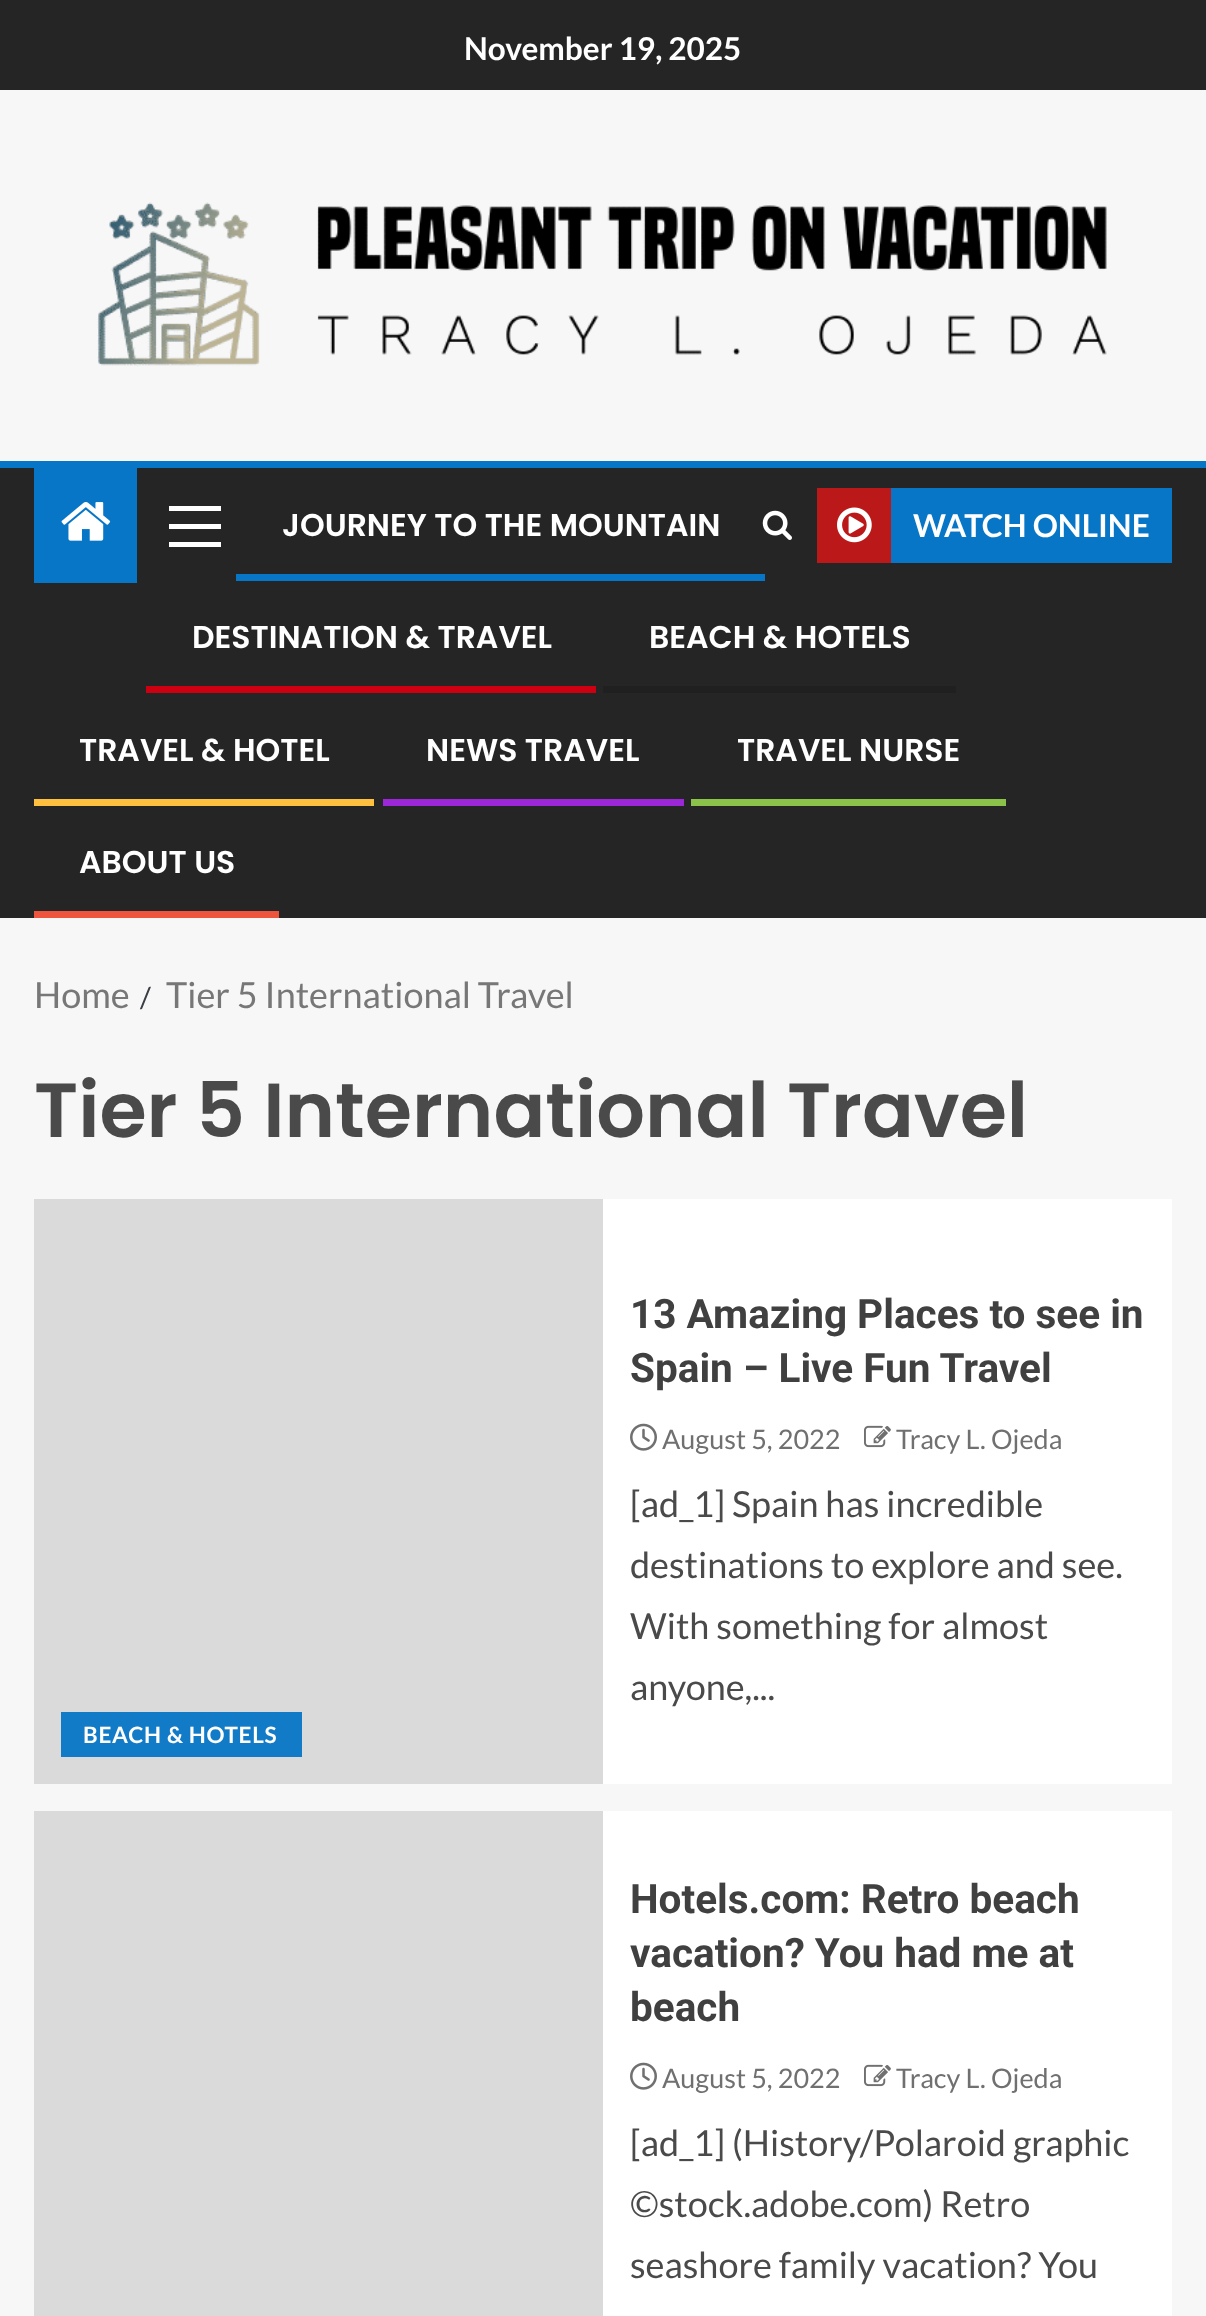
<!DOCTYPE html>
<meta charset="utf-8">
<style>body { margin: 0 } canvas { display: block }</style>
<canvas id="canvas" width="1206" height="2316"></canvas>
<script type="module">
  const canvas = document.getElementById("canvas");
  const ctx = canvas.getContext("2d");
  ctx.miterLimit = 4;
  ctx.fontKerning = "normal";
  async function loadImage(src) {
    const img = new Image();
    img.src = src;
    await img.decode();
    return img;
  }

  ctx.fillStyle = "#f7f7f7";
  ctx.fillRect(0, 0, 1206, 2316);
  ctx.fillStyle = "#252525";
  ctx.fillRect(0, 0, 1206, 90);
  ctx.font = "bold 31.5px Lato";
  ctx.fillStyle = "#ffffff";
  ctx.fillText("November 19, 2025", 464, 60);
  ctx.drawImage(await loadImage("img1.png"), 97, 202, 1010, 165);
  ctx.fillStyle = "#252525";
  ctx.fillRect(0, 468, 1206, 450);
  ctx.fillStyle = "#0776c6";
  ctx.fillRect(0, 461, 1206, 7);
  ctx.fillRect(34, 468, 103, 115);
  ctx.drawImage(await loadImage("img2.png"), 61, 502, 50, 39);
  ctx.fillStyle = "#ffffff";
  ctx.fillRect(169, 524, 52, 5);
  ctx.fillRect(169, 506, 52, 5);
  ctx.fillRect(169, 542, 52, 5);
  ctx.font = "600 31.5px Poppins";
  ctx.fillText("JOURNEY TO THE MOUNTAIN", 282, 536);
  ctx.fillStyle = "#0776c6";
  ctx.fillRect(236, 574, 529, 7);
  ctx.fillStyle = "#ffffff";
  ctx.fillText("DESTINATION & TRAVEL", 192, 648);
  ctx.fillStyle = "#cc0010";
  ctx.fillRect(146, 686, 450, 7);
  ctx.fillStyle = "#ffffff";
  ctx.fillText("BEACH & HOTELS", 649, 648);
  ctx.fillStyle = "#202020";
  ctx.fillRect(603, 686, 353, 7);
  ctx.fillStyle = "#ffffff";
  ctx.fillText("TRAVEL & HOTEL", 79, 761);
  ctx.fillStyle = "#ffbf3f";
  ctx.fillRect(34, 799, 340, 7);
  ctx.fillStyle = "#ffffff";
  ctx.fillText("NEWS TRAVEL", 426, 761);
  ctx.fillStyle = "#9c27d9";
  ctx.fillRect(383, 799, 301, 7);
  ctx.fillStyle = "#ffffff";
  ctx.fillText("TRAVEL NURSE", 737, 761);
  ctx.fillStyle = "#8bc34a";
  ctx.fillRect(691, 799, 315, 7);
  ctx.fillStyle = "#ffffff";
  ctx.fillText("ABOUT US", 79, 873);
  ctx.fillStyle = "#ed553f";
  ctx.fillRect(34, 911, 245, 7);
  ctx.drawImage(await loadImage("img3.png"), 762, 510, 30, 30);
  ctx.fillStyle = "#bb1919";
  ctx.fillRect(817, 488, 74, 75);
  ctx.drawImage(await loadImage("img4.png"), 837, 507, 35, 36);
  ctx.fillStyle = "#0776c6";
  ctx.fillRect(891, 488, 281, 75);
  ctx.font = "bold 31.5px Lato";
  ctx.fillStyle = "#ffffff";
  ctx.fillText("WATCH ONLINE", 913, 537);
  ctx.font = "36px Lato";
  ctx.fillStyle = "#777777";
  ctx.fillText("Home", 34, 1008);
  ctx.font = "29px Lato";
  ctx.fillStyle = "#393e46";
  ctx.fillText("/", 140, 1008);
  ctx.font = "36px Lato";
  ctx.fillStyle = "#777777";
  ctx.fillText("Tier 5 International Travel", 166, 1008);
  ctx.font = "600 76.5px Poppins";
  ctx.fillStyle = "#4a4a4a";
  ctx.fillText("Tier 5 International Travel", 34, 1137);
  ctx.fillStyle = "#ffffff";
  ctx.fillRect(603, 1199, 569, 585);
  ctx.font = "bold 40.5px Roboto";
  ctx.fillStyle = "#404040";
  ctx.fillText("13 Amazing Places to see in", 630, 1328);
  ctx.fillText("Spain – Live Fun Travel", 630, 1382);
  ctx.drawImage(await loadImage("img5.png"), 630, 1423, 27, 28);
  ctx.font = "27px Lato";
  ctx.fillStyle = "#707070";
  ctx.fillText("August 5, 2022", 662, 1449);
  ctx.drawImage(await loadImage("img6.png"), 864, 1425, 27, 23);
  ctx.fillText("Tracy L. Ojeda", 896, 1449);
  ctx.font = "36px Lato";
  ctx.fillStyle = "#4a4a4a";
  ctx.fillText("[ad_1] Spain has incredible", 630, 1517);
  ctx.fillText("destinations to explore and see.", 630, 1578);
  ctx.fillText("With something for almost", 630, 1639);
  ctx.fillText("anyone,...", 630, 1700);
  ctx.fillStyle = "#dadada";
  ctx.fillRect(34, 1199, 569, 585);
  ctx.fillStyle = "#127bc7";
  ctx.fillRect(61, 1712, 241, 45);
  ctx.letterSpacing = "0.75px";
  ctx.font = "bold 22.5px Lato";
  ctx.fillStyle = "#ffffff";
  ctx.fillText("BEACH & HOTELS", 83, 1743);
  ctx.fillRect(603, 1811, 569, 505);
  ctx.fillStyle = "#dadada";
  ctx.fillRect(34, 1811, 569, 505);
  ctx.letterSpacing = "0px";
  ctx.font = "bold 40.5px Roboto";
  ctx.fillStyle = "#404040";
  ctx.fillText("Hotels.com: Retro beach", 630, 1913);
  ctx.fillText("vacation? You had me at", 630, 1967);
  ctx.fillText("beach", 630, 2021);
  ctx.drawImage(await loadImage("img5.png"), 630, 2062, 27, 28);
  ctx.font = "27px Lato";
  ctx.fillStyle = "#707070";
  ctx.fillText("August 5, 2022", 662, 2088);
  ctx.drawImage(await loadImage("img6.png"), 864, 2064, 27, 23);
  ctx.fillText("Tracy L. Ojeda", 896, 2088);
  ctx.font = "36px Lato";
  ctx.fillStyle = "#4a4a4a";
  ctx.fillText("[ad_1] (History/Polaroid graphic", 630, 2156);
  ctx.fillText("©stock.adobe.com) Retro", 630, 2217);
  ctx.fillText("seashore family vacation? You", 630, 2278);
</script>
